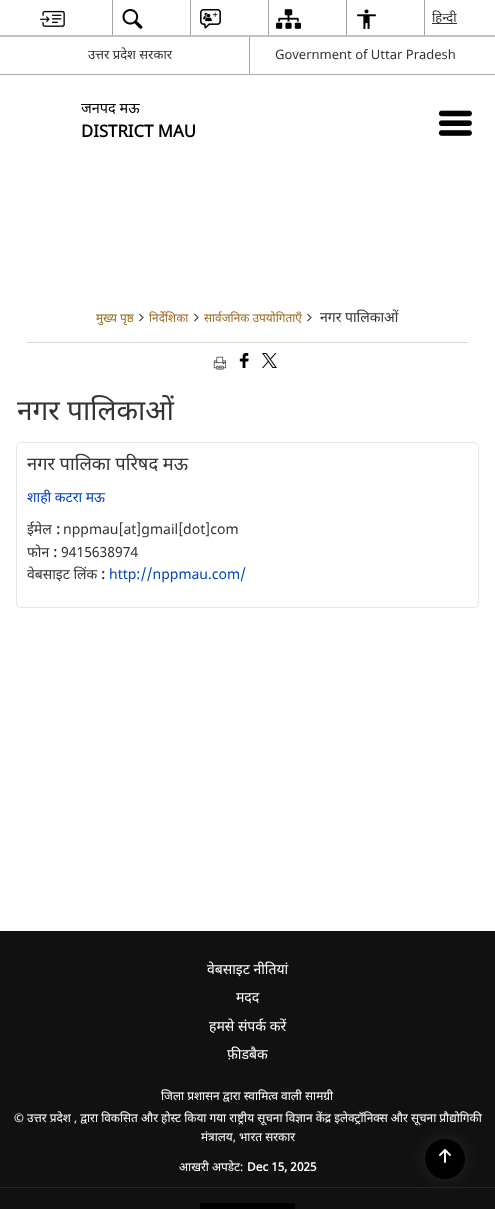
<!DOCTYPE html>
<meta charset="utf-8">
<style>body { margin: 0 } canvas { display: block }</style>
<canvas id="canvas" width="495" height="1209"></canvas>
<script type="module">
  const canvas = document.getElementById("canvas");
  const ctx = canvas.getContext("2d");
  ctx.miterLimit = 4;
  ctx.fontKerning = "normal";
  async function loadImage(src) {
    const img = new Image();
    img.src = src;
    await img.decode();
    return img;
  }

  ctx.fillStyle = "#ffffff";
  ctx.fillRect(0, 0, 495, 1209);
  ctx.fillStyle = "#ababab";
  ctx.fillRect(0, 74, 495, 1);
  ctx.drawImage(await loadImage("img1.png"), 40, 10, 25, 17);
  ctx.fillStyle = "#a3a3a3";
  ctx.fillRect(112, 0, 1, 37);
  ctx.drawImage(await loadImage("img2.png"), 122, 9, 21, 20);
  ctx.fillRect(190, 0, 1, 37);
  ctx.drawImage(await loadImage("img3.png"), 200, 9, 21, 20);
  ctx.fillRect(268, 0, 1, 37);
  ctx.drawImage(await loadImage("img4.png"), 276, 9, 25, 20);
  ctx.fillRect(346, 0, 1, 37);
  ctx.drawImage(await loadImage("img5.png"), 357, 9, 19, 20);
  ctx.fillRect(424, 0, 1, 37);
  ctx.fillStyle = "#333333";
  ctx.fillRect(432, 23, 25, 1);
  ctx.font = "13px Noto Sans";
  ctx.fillText("हिन्दी", 432, 22);
  ctx.fillText("उत्तर प्रदेश सरकार", 88, 59);
  ctx.fillStyle = "#a3a3a3";
  ctx.fillRect(249, 37, 1, 37);
  ctx.font = "13px 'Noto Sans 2'";
  ctx.fillStyle = "#333333";
  ctx.fillText("Government of Uttar Pradesh", 275, 59);
  ctx.fillStyle = "#c2c0c1";
  ctx.fillRect(0, 35, 495, 2);
  ctx.font = "14.5px Noto Sans";
  ctx.fillStyle = "#000000";
  ctx.fillText("जनपद मऊ", 81, 113);
  ctx.font = "bold 16.75px Noto Sans";
  ctx.fillText("DISTRICT MAU", 81, 137);
  ctx.drawImage(await loadImage("img6.png"), 438, 110, 34, 26);
  ctx.fillStyle = "#d8d8d8";
  ctx.fillRect(27, 342, 441, 1);
  ctx.font = "11.9px Noto Sans";
  ctx.fillStyle = "#9e6b22";
  ctx.fillText("मुख्य पृष्ठ", 96, 322);
  ctx.drawImage(await loadImage("img7.png"), 139, 313, 5, 9);
  ctx.fillText("निर्देशिका", 149, 322);
  ctx.drawImage(await loadImage("img7.png"), 194, 313, 5, 9);
  ctx.fillText("सार्वजनिक उपयोगिताएँ", 204, 322);
  ctx.drawImage(await loadImage("img7.png"), 307, 313, 5, 9);
  ctx.font = "14px Noto Sans";
  ctx.fillStyle = "#333333";
  ctx.fillText("नगर पालिकाओं", 320, 322);
  ctx.drawImage(await loadImage("img8.png"), 213, 356, 13, 14);
  ctx.drawImage(await loadImage("img9.png"), 239, 353, 10, 15);
  ctx.drawImage(await loadImage("img10.png"), 262, 353, 15, 15);
  ctx.font = "28px Noto Sans";
  ctx.fillText("नगर पालिकाओं", 17, 420);
  ctx.beginPath();
  ctx.roundRect(16.5, 442.5, 462, 165, 4.5);
  ctx.strokeStyle = "#e6e6e6";
  ctx.stroke();
  ctx.font = "18.25px Noto Sans";
  ctx.fillText("नगर पालिका परिषद मऊ", 27, 470);
  ctx.font = "14px Noto Sans";
  ctx.fillStyle = "#0042bf";
  ctx.fillText("शाही कटरा मऊ", 27, 502);
  ctx.fillStyle = "#333333";
  ctx.fillText("ईमेल", 27, 534);
  ctx.font = "bold 14px Noto Sans";
  ctx.fillText(":", 56, 534);
  ctx.font = "14px 'Noto Sans 2'";
  ctx.fillText("nppmau[at]gmail[dot]com", 63, 534);
  ctx.font = "14px Noto Sans";
  ctx.fillText("फोन", 27, 557);
  ctx.font = "bold 14px Noto Sans";
  ctx.fillText(":", 53, 557);
  ctx.font = "14px 'Noto Sans 2'";
  ctx.fillText("9415638974", 61, 557);
  ctx.font = "14px Noto Sans";
  ctx.fillText("वेबसाइट लिंक", 27, 579);
  ctx.font = "bold 14px Noto Sans";
  ctx.fillText(":", 101, 579);
  ctx.font = "14px 'Noto Sans 2'";
  ctx.fillStyle = "#0042bf";
  ctx.fillText("http://nppmau.com/", 109, 579);
  ctx.fillStyle = "#111111";
  ctx.fillRect(0, 931, 495, 278);
  ctx.font = "14px Noto Sans";
  ctx.fillStyle = "#ffffff";
  ctx.fillText("वेबसाइट नीतियां", 207, 974);
  ctx.fillText("मदद", 236, 1002);
  ctx.fillText("हमसे संपर्क करें", 209, 1031);
  ctx.fillText("फ़ीडबैक", 227, 1059);
  ctx.font = "11.9px Noto Sans";
  ctx.fillText("जिला प्रशासन द्वारा स्वामित्व वाली सामग्री", 161, 1100);
  ctx.fillText("© उत्तर प्रदेश , द्वारा विकसित और होस्ट किया गया राष्ट्रीय सूचना विज्ञान केंद्र इलेक्ट्रॉनिक्स और सूचना प्रौद्योगिकी", 14, 1122);
  ctx.fillText("मंत्रालय, भारत सरकार", 201, 1141);
  ctx.fillText("आखरी अपडेट:", 179, 1171);
  ctx.font = "bold 11.9px Noto Sans";
  ctx.fillText("Dec 15, 2025", 247, 1171);
  ctx.fillStyle = "#292929";
  ctx.fillRect(0, 1187, 495, 1);
  ctx.fillStyle = "#000000";
  ctx.fillRect(200, 1203, 95, 6);
  ctx.fillStyle = "#3c3c3c";
  ctx.filter = "blur(9.5px)";
  ctx.beginPath();
  ctx.roundRect(430, 1144, 30, 30, 15);
  ctx.fill();
  ctx.filter = "none";
  ctx.fillStyle = "#000000";
  ctx.beginPath();
  ctx.arc(445, 1159, 20, 0, Math.PI * 2);
  ctx.fill();
  ctx.drawImage(await loadImage("img11.png"), 439, 1149, 12, 14);
</script>
